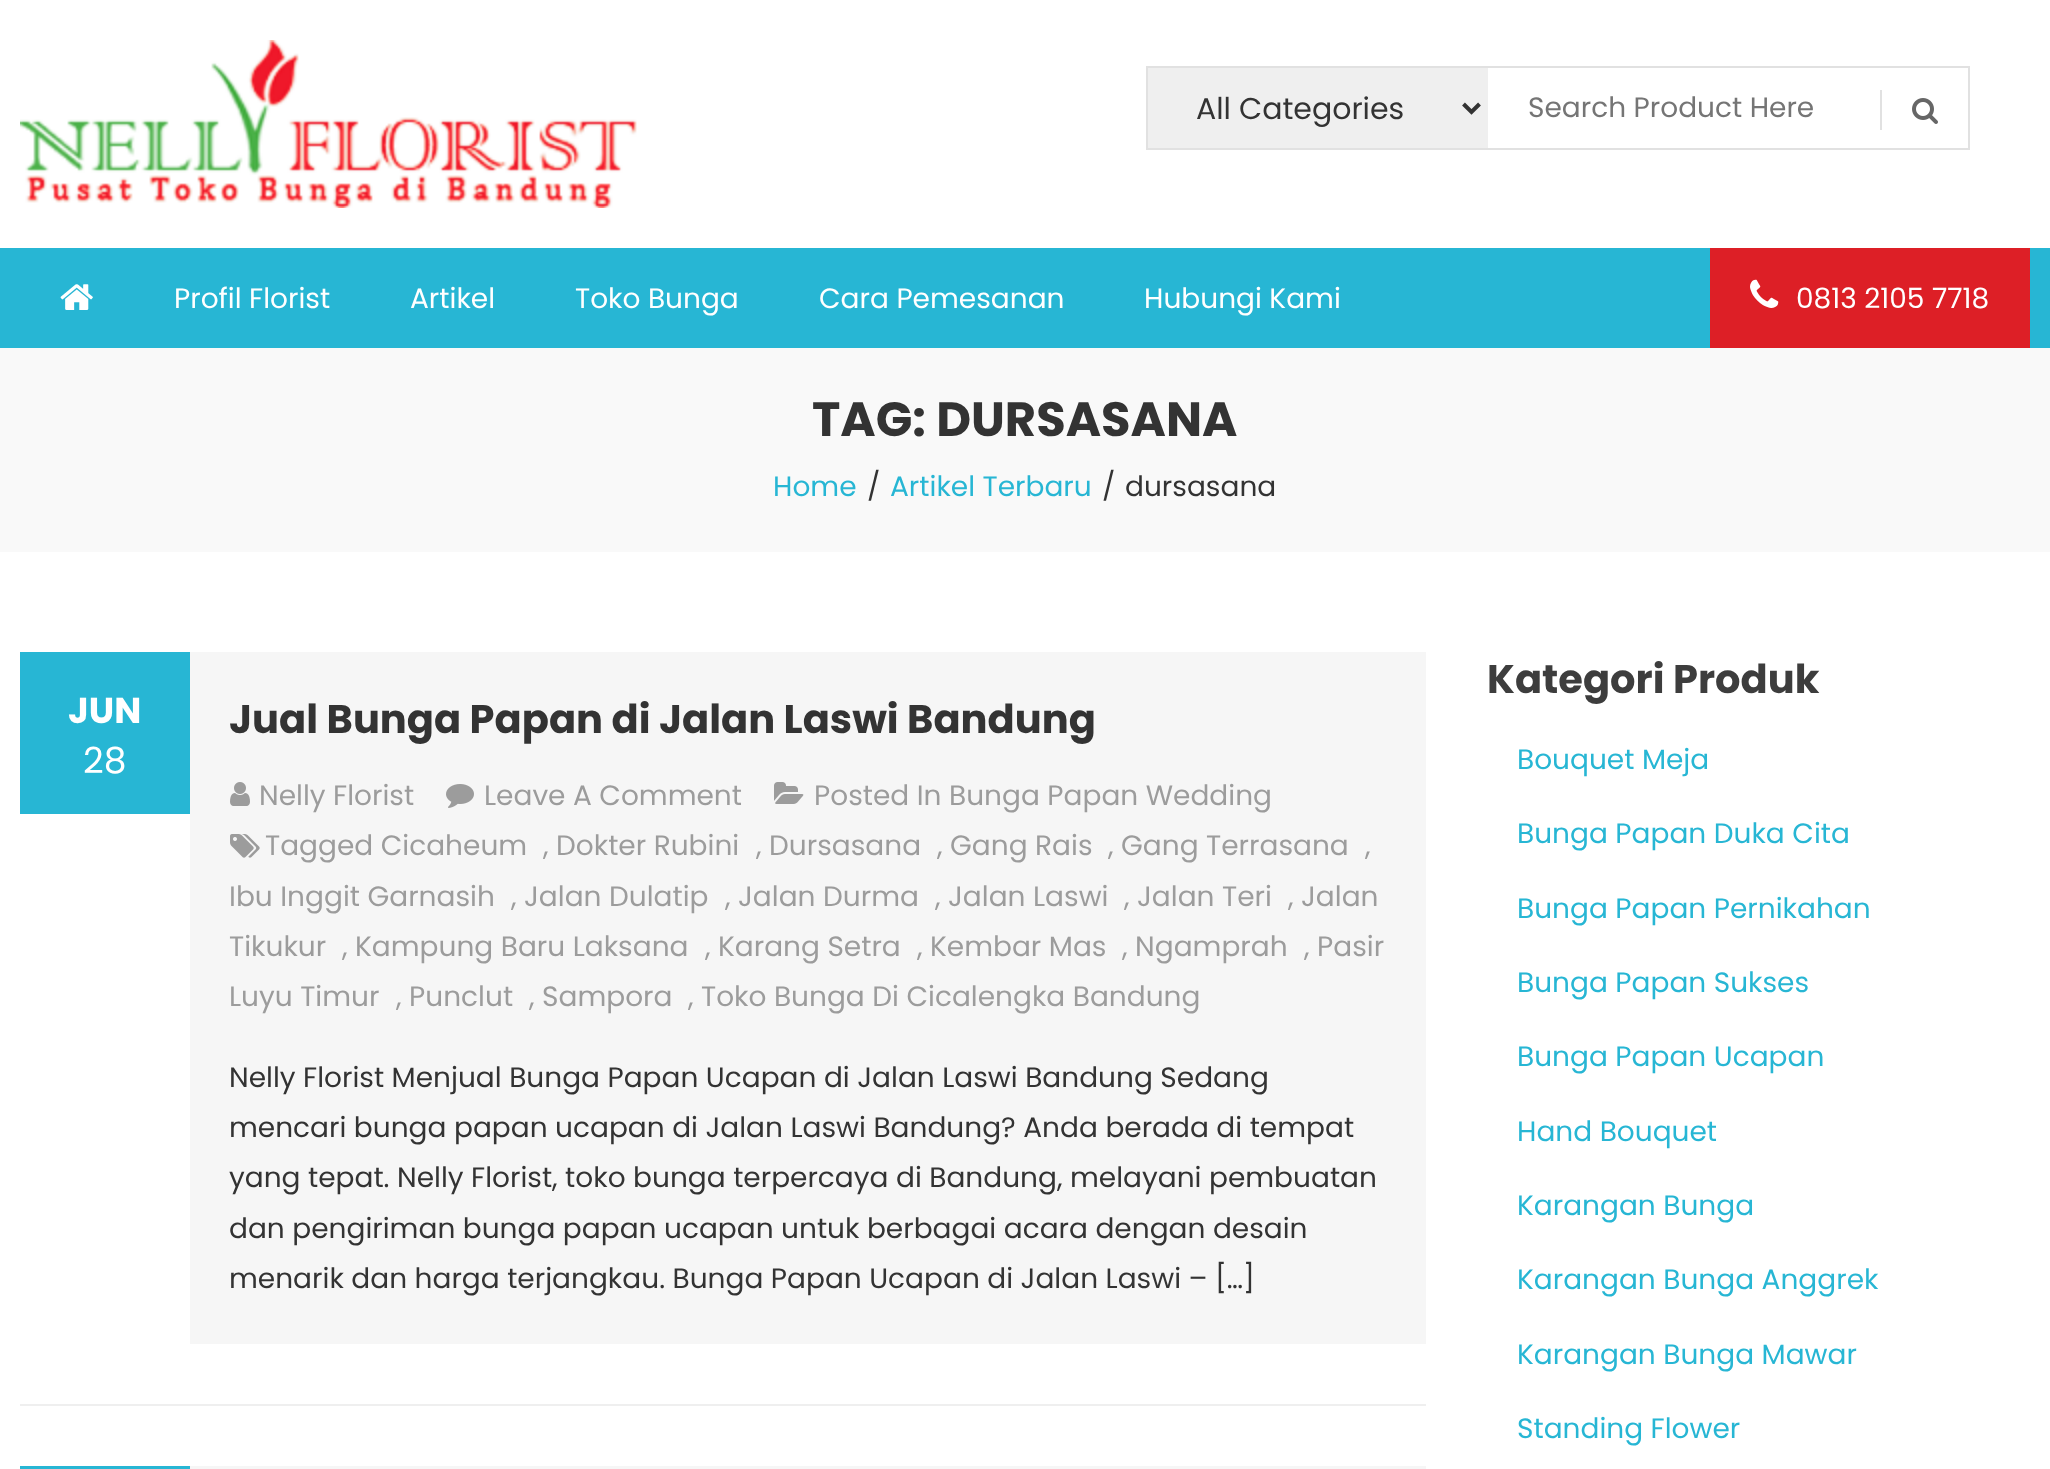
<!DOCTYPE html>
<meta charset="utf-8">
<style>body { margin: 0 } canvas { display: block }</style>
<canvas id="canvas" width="2050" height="1469"></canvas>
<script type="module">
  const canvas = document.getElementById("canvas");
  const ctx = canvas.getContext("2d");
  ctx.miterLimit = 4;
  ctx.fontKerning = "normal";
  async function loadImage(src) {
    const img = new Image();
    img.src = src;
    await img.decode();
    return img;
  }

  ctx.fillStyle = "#ffffff";
  ctx.fillRect(0, 0, 2050, 1469);
  ctx.drawImage(await loadImage("img1.png"), 20, 40, 617, 168);
  ctx.strokeStyle = "#e1e1e1";
  ctx.lineWidth = 2;
  ctx.strokeRect(1147, 67, 822, 82);
  ctx.fillStyle = "#efefef";
  ctx.fillRect(1148, 68, 340, 80);
  ctx.beginPath();
  ctx.moveTo(1463.5, 104);
  ctx.lineTo(1471.5, 112);
  ctx.lineTo(1479.5, 104);
  ctx.strokeStyle = "#333333";
  ctx.lineWidth = 4;
  ctx.stroke();
  ctx.font = "30px Poppins";
  ctx.fillStyle = "#333333";
  ctx.fillText("All Categories", 1196, 119);
  ctx.font = "28px Poppins";
  ctx.fillStyle = "#757575";
  ctx.fillText("Search Product Here", 1528, 117);
  ctx.fillStyle = "#e1e1e1";
  ctx.fillRect(1880, 90, 2, 40);
  ctx.drawImage(await loadImage("img2.png"), 1912, 98, 26, 26);
  ctx.fillStyle = "#27b6d4";
  ctx.fillRect(0, 248, 2050, 100);
  ctx.drawImage(await loadImage("img3.png"), 60, 284, 33, 26);
  ctx.fillStyle = "#ffffff";
  ctx.fillText("Profil Florist", 174, 308);
  ctx.fillText("Artikel", 410, 308);
  ctx.fillText("Toko Bunga", 575, 308);
  ctx.fillText("Cara Pemesanan", 819, 308);
  ctx.fillText("Hubungi Kami", 1144, 308);
  ctx.fillStyle = "#dd1f26";
  ctx.fillRect(1710, 248, 320, 100);
  ctx.drawImage(await loadImage("img4.png"), 1750, 279, 29, 29);
  ctx.fillStyle = "#ffffff";
  ctx.fillText("0813 2105 7718", 1796, 308);
  ctx.fillStyle = "#f9f9f9";
  ctx.fillRect(0, 348, 2050, 204);
  ctx.font = "bold 48px Poppins";
  ctx.fillStyle = "#333333";
  ctx.fillText("TAG: DURSASANA", 812, 436);
  ctx.font = "28px Poppins";
  ctx.fillStyle = "#27b6d4";
  ctx.fillText("Home", 773, 496);
  ctx.fillStyle = "#333333";
  ctx.fillText("/", 867, 496);
  ctx.fillStyle = "#27b6d4";
  ctx.fillText("Artikel Terbaru", 890, 496);
  ctx.fillStyle = "#333333";
  ctx.fillText("/", 1102, 496);
  ctx.fillText("dursasana", 1125, 496);
  ctx.fillStyle = "#efefef";
  ctx.fillRect(20, 1404, 1406, 2);
  ctx.fillStyle = "#27b6d4";
  ctx.fillRect(20, 652, 170, 162);
  ctx.font = "bold 36px Poppins";
  ctx.fillStyle = "#ffffff";
  ctx.fillText("JUN", 68, 723);
  ctx.font = "36px Poppins";
  ctx.fillText("28", 83, 773);
  ctx.fillStyle = "#f6f6f6";
  ctx.fillRect(190, 652, 1236, 692);
  ctx.font = "bold 40px Poppins";
  ctx.fillStyle = "#333333";
  ctx.fillText("Jual Bunga Papan di Jalan Laswi Bandung", 229, 733);
  ctx.drawImage(await loadImage("img5.png"), 230, 782, 20, 24);
  ctx.font = "28px Poppins";
  ctx.fillStyle = "#9c9c9c";
  ctx.fillText("Nelly Florist", 259, 805);
  ctx.drawImage(await loadImage("img6.png"), 446, 784, 28, 24);
  ctx.fillText("Leave A Comment", 484, 805);
  ctx.drawImage(await loadImage("img7.png"), 774, 782, 30, 22);
  ctx.fillText("Posted In Bunga Papan Wedding", 814, 805);
  ctx.drawImage(await loadImage("img8.png"), 230, 834, 30, 24);
  ctx.fillText("Tagged Cicaheum", 265, 855);
  ctx.fillText(", Dokter Rubini", 543, 855);
  ctx.fillText(", Dursasana", 756, 855);
  ctx.fillText(", Gang Rais", 937, 855);
  ctx.fillText(", Gang Terrasana", 1108, 855);
  ctx.fillText(",", 1365, 855);
  ctx.fillText("Ibu Inggit Garnasih", 229, 906);
  ctx.fillText(", Jalan Dulatip", 511, 906);
  ctx.fillText(", Jalan Durma", 725, 906);
  ctx.fillText(", Jalan Laswi", 935, 906);
  ctx.fillText(", Jalan Teri", 1124, 906);
  ctx.fillText(", Jalan", 1288, 906);
  ctx.fillText("Tikukur", 229, 956);
  ctx.fillText(", Kampung Baru Laksana", 342, 956);
  ctx.fillText(", Karang Setra", 705, 956);
  ctx.fillText(", Kembar Mas", 917, 956);
  ctx.fillText(", Ngamprah", 1122, 956);
  ctx.fillText(", Pasir", 1304, 956);
  ctx.fillText("Luyu Timur", 229, 1006);
  ctx.fillText(", Punclut", 396, 1006);
  ctx.fillText(", Sampora", 529, 1006);
  ctx.fillText(", Toko Bunga Di Cicalengka Bandung", 688, 1006);
  ctx.fillStyle = "#333333";
  ctx.fillText("Nelly Florist Menjual Bunga Papan Ucapan di Jalan Laswi Bandung Sedang", 229, 1087);
  ctx.fillText("mencari bunga papan ucapan di Jalan Laswi Bandung? Anda berada di tempat", 229, 1137);
  ctx.fillText("yang tepat. Nelly Florist, toko bunga terpercaya di Bandung, melayani pembuatan", 229, 1187);
  ctx.fillText("dan pengiriman bunga papan ucapan untuk berbagai acara dengan desain", 229, 1238);
  ctx.fillText("menarik dan harga terjangkau. Bunga Papan Ucapan di Jalan Laswi – […]", 229, 1288);
  ctx.fillStyle = "#27b6d4";
  ctx.fillRect(20, 1466, 170, 3);
  ctx.fillStyle = "#f6f6f6";
  ctx.fillRect(190, 1466, 1236, 3);
  ctx.font = "bold 40px Poppins";
  ctx.fillStyle = "#3d3d3d";
  ctx.fillText("Kategori Produk", 1487, 693);
  ctx.font = "28px Poppins";
  ctx.fillStyle = "#27b6d4";
  ctx.fillText("Bouquet Meja", 1517, 769);
  ctx.fillText("Bunga Papan Duka Cita", 1517, 843);
  ctx.fillText("Bunga Papan Pernikahan", 1517, 918);
  ctx.fillText("Bunga Papan Sukses", 1517, 992);
  ctx.fillText("Bunga Papan Ucapan", 1517, 1066);
  ctx.fillText("Hand Bouquet", 1517, 1141);
  ctx.fillText("Karangan Bunga", 1517, 1215);
  ctx.fillText("Karangan Bunga Anggrek", 1517, 1289);
  ctx.fillText("Karangan Bunga Mawar", 1517, 1364);
  ctx.fillText("Standing Flower", 1517, 1438);
</script>
